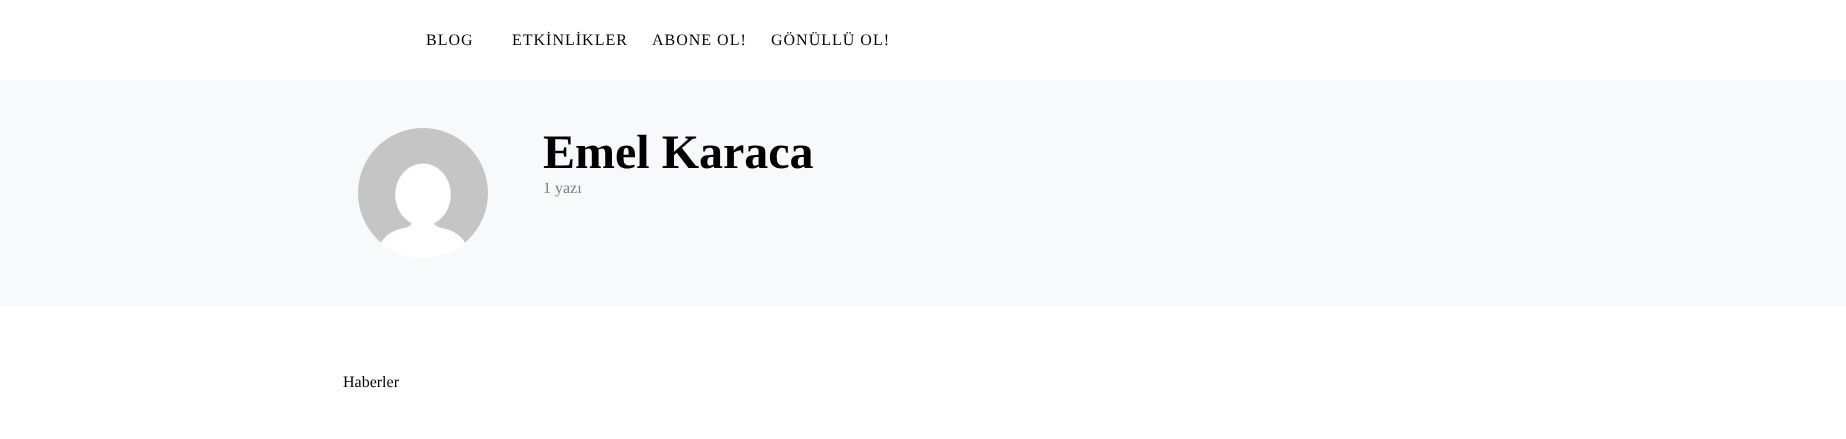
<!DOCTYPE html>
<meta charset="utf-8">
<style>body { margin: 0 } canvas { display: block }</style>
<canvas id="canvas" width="1846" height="439"></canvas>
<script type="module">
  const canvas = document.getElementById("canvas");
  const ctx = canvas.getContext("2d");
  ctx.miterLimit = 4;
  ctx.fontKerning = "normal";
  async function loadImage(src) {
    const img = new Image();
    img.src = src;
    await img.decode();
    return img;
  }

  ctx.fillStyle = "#ffffff";
  ctx.fillRect(0, 0, 1846, 439);
  ctx.letterSpacing = "1px";
  ctx.font = "16px Liberation Serif";
  ctx.fillStyle = "#000000";
  ctx.fillText("BLOG", 426, 45);
  ctx.fillText("ETKİNLİKLER", 512, 45);
  ctx.fillText("ABONE OL!", 652, 45);
  ctx.fillText("GÖNÜLLÜ OL!", 771, 45);
  ctx.fillStyle = "#f8f9fa";
  ctx.fillRect(0, 80, 1846, 226);
  ctx.drawImage(await loadImage("img1.png"), 358, 128, 130, 130);
  ctx.letterSpacing = "0px";
  ctx.font = "bold 48px Liberation Serif";
  ctx.fillStyle = "#000000";
  ctx.fillText("Emel Karaca", 543, 168);
  ctx.font = "16px Liberation Serif";
  ctx.fillStyle = "#7c7d7d";
  ctx.fillText("1 yazı", 543, 193);
  ctx.fillStyle = "#000000";
  ctx.fillText("Haberler", 343, 387);
</script>
